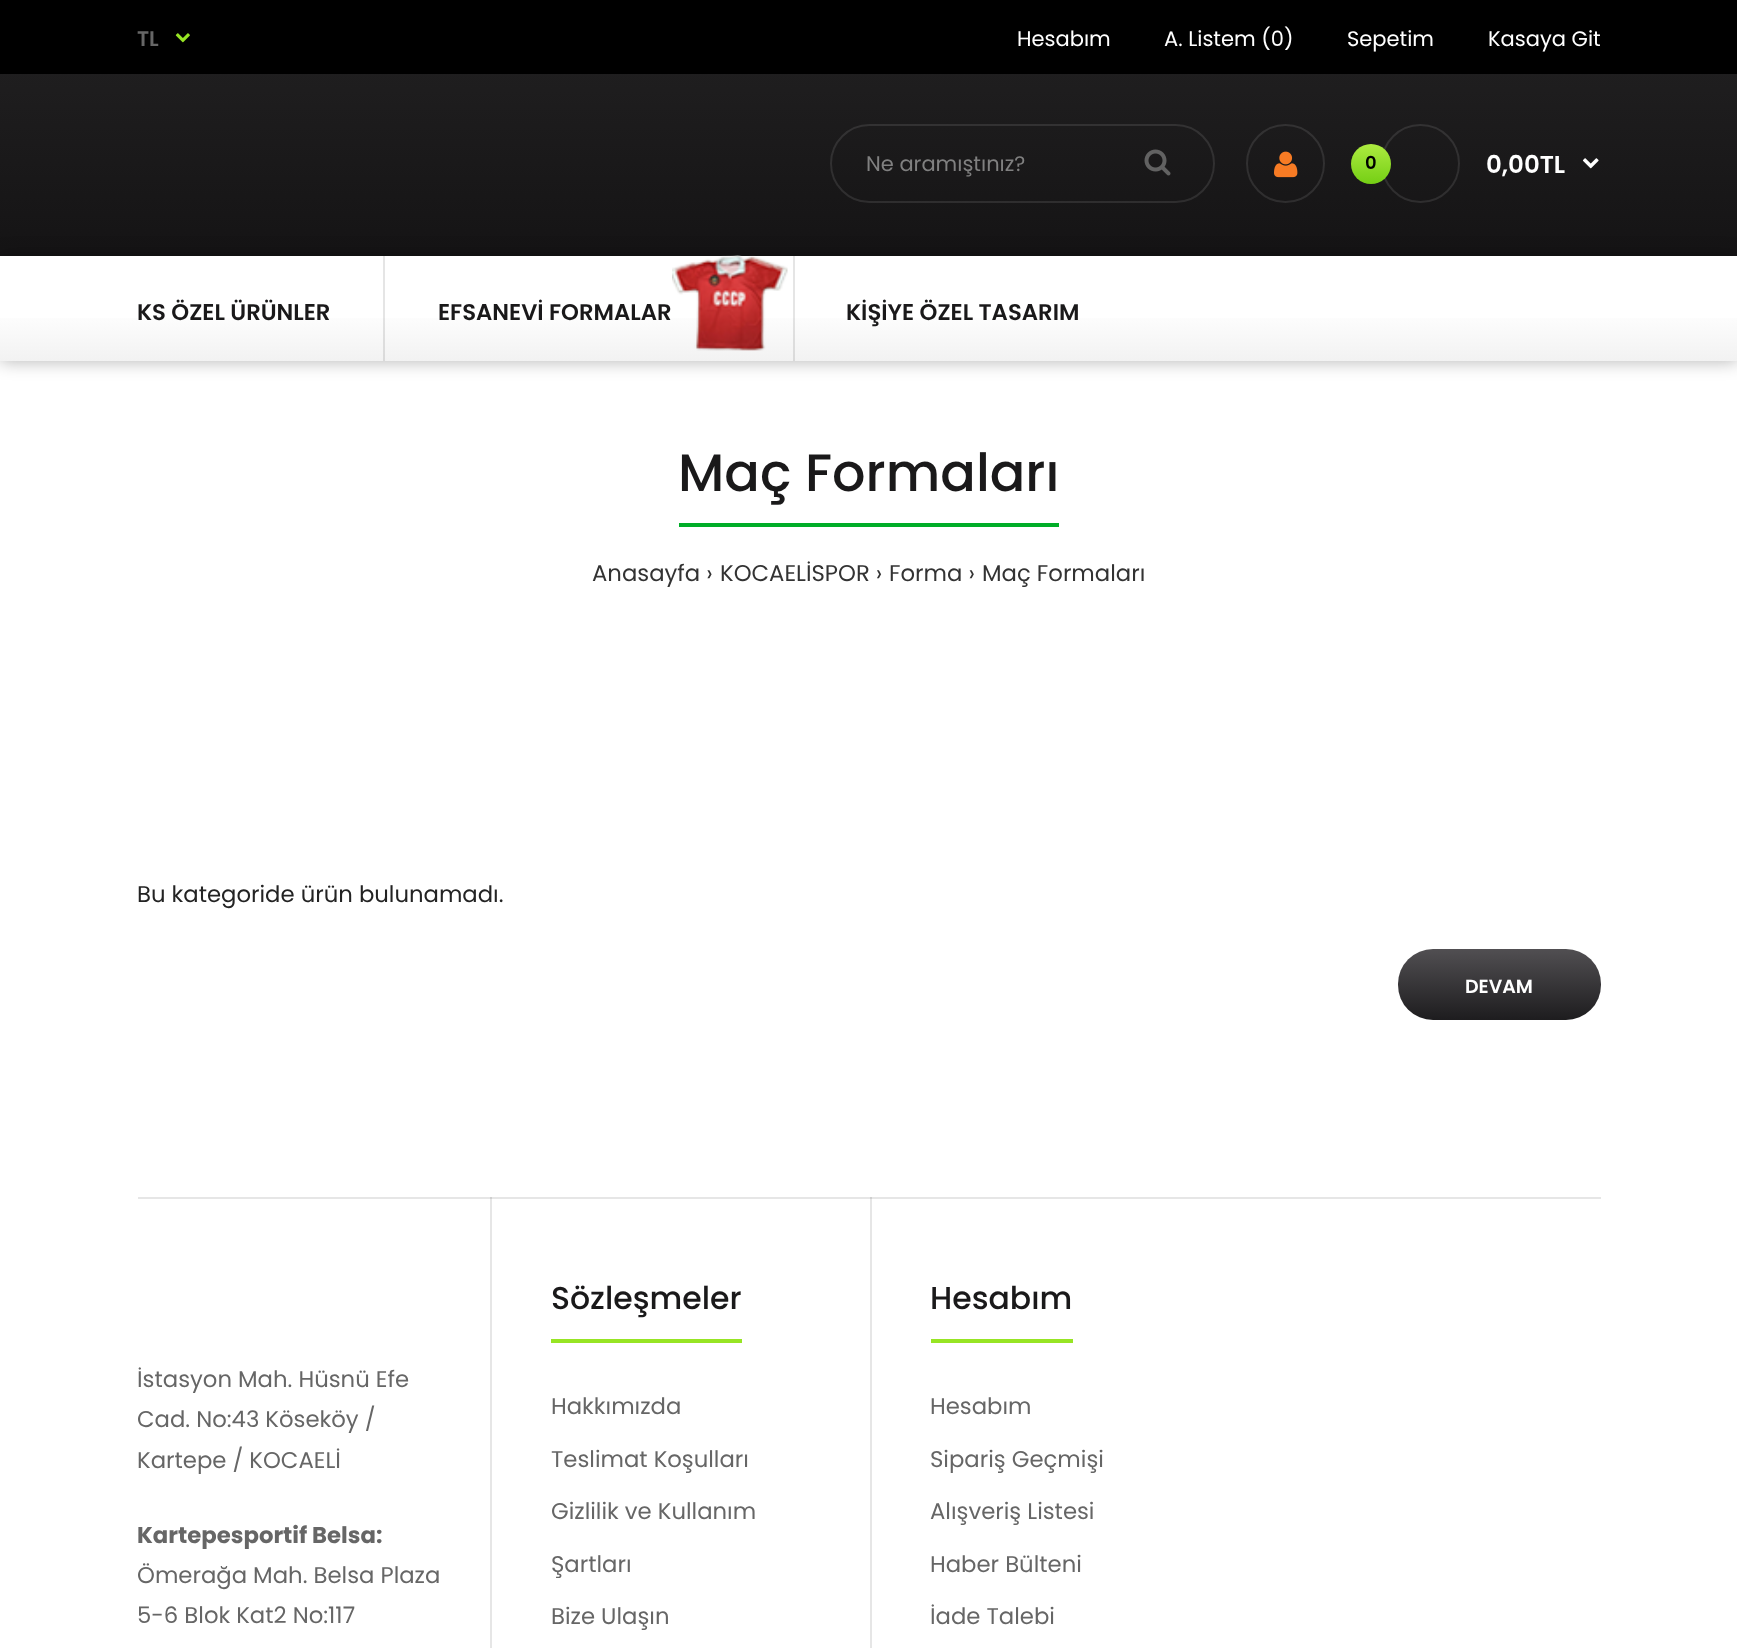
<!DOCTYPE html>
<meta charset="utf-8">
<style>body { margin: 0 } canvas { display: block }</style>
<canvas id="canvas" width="1737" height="1648"></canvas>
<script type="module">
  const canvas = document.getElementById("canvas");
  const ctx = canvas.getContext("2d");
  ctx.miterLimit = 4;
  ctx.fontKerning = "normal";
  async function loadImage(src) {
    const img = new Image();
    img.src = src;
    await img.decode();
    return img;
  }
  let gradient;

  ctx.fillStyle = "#ffffff";
  ctx.fillRect(0, 0, 1737, 1648);
  ctx.fillStyle = "#e6e6e6";
  ctx.fillRect(870, 1197, 2, 451);
  ctx.fillRect(490, 1197, 2, 451);
  gradient = ctx.createLinearGradient(869, 0, 869, 361);
  gradient.addColorStop(0, "#0f0e0f");
  gradient.addColorStop(0, "#232223");
  gradient.addColorStop(0.99, "#0f0e0f");
  ctx.fillStyle = gradient;
  ctx.fillRect(0, 74, 1737, 182);
  ctx.fillStyle = "#000000";
  ctx.fillRect(0, 0, 1737, 74);
  ctx.font = "600 21px Poppins";
  ctx.fillStyle = "#666666";
  ctx.fillText("TL", 137, 46);
  ctx.drawImage(await loadImage("img1.png"), 175, 33, 15, 10);
  ctx.font = "21px Poppins";
  ctx.fillStyle = "#ffffff";
  ctx.fillText("Hesabım", 1017, 46);
  ctx.fillText("A. Listem (0)", 1164, 46);
  ctx.fillText("Sepetim", 1347, 46);
  ctx.fillText("Kasaya Git", 1488, 46);
  ctx.beginPath();
  ctx.roundRect(831, 125, 383, 77, 38.5);
  ctx.strokeStyle = "rgba(255, 255, 255, 0.1)";
  ctx.lineWidth = 2;
  ctx.stroke();
  ctx.fillStyle = "#808080";
  ctx.fillText("Ne aramıştınız?", 866, 171);
  ctx.drawImage(await loadImage("img2.png"), 1144, 149, 27, 27);
  ctx.beginPath();
  ctx.arc(1285.5, 163.5, 38.5, 0, Math.PI * 2);
  ctx.stroke();
  ctx.drawImage(await loadImage("img3.png"), 1274, 151, 24, 27);
  ctx.beginPath();
  ctx.arc(1420.5, 163.5, 38.5, 0, Math.PI * 2);
  ctx.stroke();
  gradient = ctx.createLinearGradient(1371, 144, 1371, 184);
  gradient.addColorStop(0, "#75cf15");
  gradient.addColorStop(0, "#adeb40");
  gradient.addColorStop(0.99, "#75cf15");
  ctx.fillStyle = gradient;
  ctx.beginPath();
  ctx.arc(1371, 164, 20, 0, Math.PI * 2);
  ctx.fill();
  ctx.font = "600 18px Poppins";
  ctx.fillStyle = "#000000";
  ctx.fillText("0", 1365, 169);
  ctx.font = "600 24.5px Poppins";
  ctx.fillStyle = "#ffffff";
  ctx.fillText("0,00TL", 1486, 173);
  ctx.drawImage(await loadImage("img4.png"), 1582, 158, 17, 11);
  gradient = ctx.createLinearGradient(869, 255, 869, 361);
  gradient.addColorStop(0.5, "#ffffff");
  gradient.addColorStop(1, "#f2f2f2");
  ctx.fillStyle = gradient;
  ctx.fillRect(0, 318, 1737, 43);
  ctx.save();
  ctx.beginPath();
  ctx.moveTo(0, 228);
  ctx.lineTo(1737, 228);
  ctx.lineTo(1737, 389);
  ctx.lineTo(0, 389);
  ctx.closePath();
  ctx.moveTo(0, 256);
  ctx.lineTo(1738, 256);
  ctx.lineTo(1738, 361);
  ctx.lineTo(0, 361);
  ctx.closePath();
  ctx.clip("evenodd");
  ctx.fillStyle = "rgba(0, 0, 0, 0.3)";
  ctx.filter = "blur(9px)";
  ctx.beginPath();
  ctx.rect(0, 256, 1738, 105);
  ctx.fill();
  ctx.filter = "none";
  ctx.restore();
  ctx.font = "600 22.75px Poppins";
  ctx.fillStyle = "#1a191a";
  ctx.fillText("KS ÖZEL ÜRÜNLER", 137, 320);
  ctx.fillStyle = "rgba(0, 0, 0, 0.1)";
  ctx.fillRect(383, 256, 2, 105);
  ctx.fillStyle = "#1a191a";
  ctx.fillText("EFSANEVİ FORMALAR", 438, 320);
  ctx.drawImage(await loadImage("img5.png"), 672, 255, 116, 96);
  ctx.fillStyle = "rgba(0, 0, 0, 0.1)";
  ctx.fillRect(793, 256, 2, 105);
  ctx.fillStyle = "#1a191a";
  ctx.fillText("KİŞİYE ÖZEL TASARIM", 846, 320);
  ctx.fillStyle = "#00ad28";
  ctx.fillRect(679, 523, 380, 4);
  ctx.font = "500 52.5px Poppins";
  ctx.fillStyle = "#1a191a";
  ctx.fillText("Maç Formaları", 678, 491);
  ctx.font = "22.75px Poppins";
  ctx.fillStyle = "#333333";
  ctx.fillText("Anasayfa ›", 592, 581);
  ctx.fillText("KOCAELİSPOR ›", 720, 581);
  ctx.fillText("Forma ›", 889, 581);
  ctx.fillText("Maç Formaları", 982, 581);
  ctx.fillStyle = "#232323";
  ctx.fillText("Bu kategoride ürün bulunamadı.", 137, 902);
  gradient = ctx.createLinearGradient(1500, 949, 1500, 1020);
  gradient.addColorStop(0, "#1e1d1f");
  gradient.addColorStop(0, "#514f52");
  gradient.addColorStop(0.99, "#1e1d1f");
  ctx.fillStyle = gradient;
  ctx.beginPath();
  ctx.roundRect(1398, 949, 203, 71, 35);
  ctx.fill();
  ctx.font = "600 19px Poppins";
  ctx.fillStyle = "#ffffff";
  ctx.fillText("DEVAM", 1465, 993);
  ctx.fillStyle = "#e6e6e6";
  ctx.fillRect(138, 1197, 1463, 2);
  ctx.fillStyle = "#cfcfcf";
  ctx.fillRect(870, 1197, 2, 2);
  ctx.fillRect(490, 1197, 2, 2);
  ctx.font = "22.75px Poppins";
  ctx.fillStyle = "#666666";
  ctx.fillText("İstasyon Mah. Hüsnü Efe", 137, 1387);
  ctx.fillText("Cad. No:43 Köseköy /", 137, 1427);
  ctx.fillText("Kartepe / KOCAELİ", 137, 1468);
  ctx.font = "bold 22.75px Poppins";
  ctx.fillText("Kartepesportif Belsa:", 137, 1543);
  ctx.font = "22.75px Poppins";
  ctx.fillText("Ömerağa Mah. Belsa Plaza", 137, 1583);
  ctx.fillText("5-6 Blok Kat2 No:117", 137, 1623);
  ctx.fillStyle = "#97e524";
  ctx.fillRect(551, 1339, 191, 4);
  ctx.font = "500 31.5px Poppins";
  ctx.fillStyle = "#1a191a";
  ctx.fillText("Sözleşmeler", 551, 1309);
  ctx.font = "22.75px Poppins";
  ctx.fillStyle = "#666666";
  ctx.fillText("Hakkımızda", 551, 1414);
  ctx.fillText("Teslimat Koşulları", 551, 1467);
  ctx.fillText("Gizlilik ve Kullanım", 551, 1519);
  ctx.fillText("Şartları", 551, 1572);
  ctx.fillText("Bize Ulaşın", 551, 1624);
  ctx.fillStyle = "#97e524";
  ctx.fillRect(931, 1339, 142, 4);
  ctx.font = "500 31.5px Poppins";
  ctx.fillStyle = "#1a191a";
  ctx.fillText("Hesabım", 930, 1309);
  ctx.font = "22.75px Poppins";
  ctx.fillStyle = "#666666";
  ctx.fillText("Hesabım", 930, 1414);
  ctx.fillText("Sipariş Geçmişi", 930, 1467);
  ctx.fillText("Alışveriş Listesi", 930, 1519);
  ctx.fillText("Haber Bülteni", 930, 1572);
  ctx.fillText("İade Talebi", 930, 1624);
</script>
